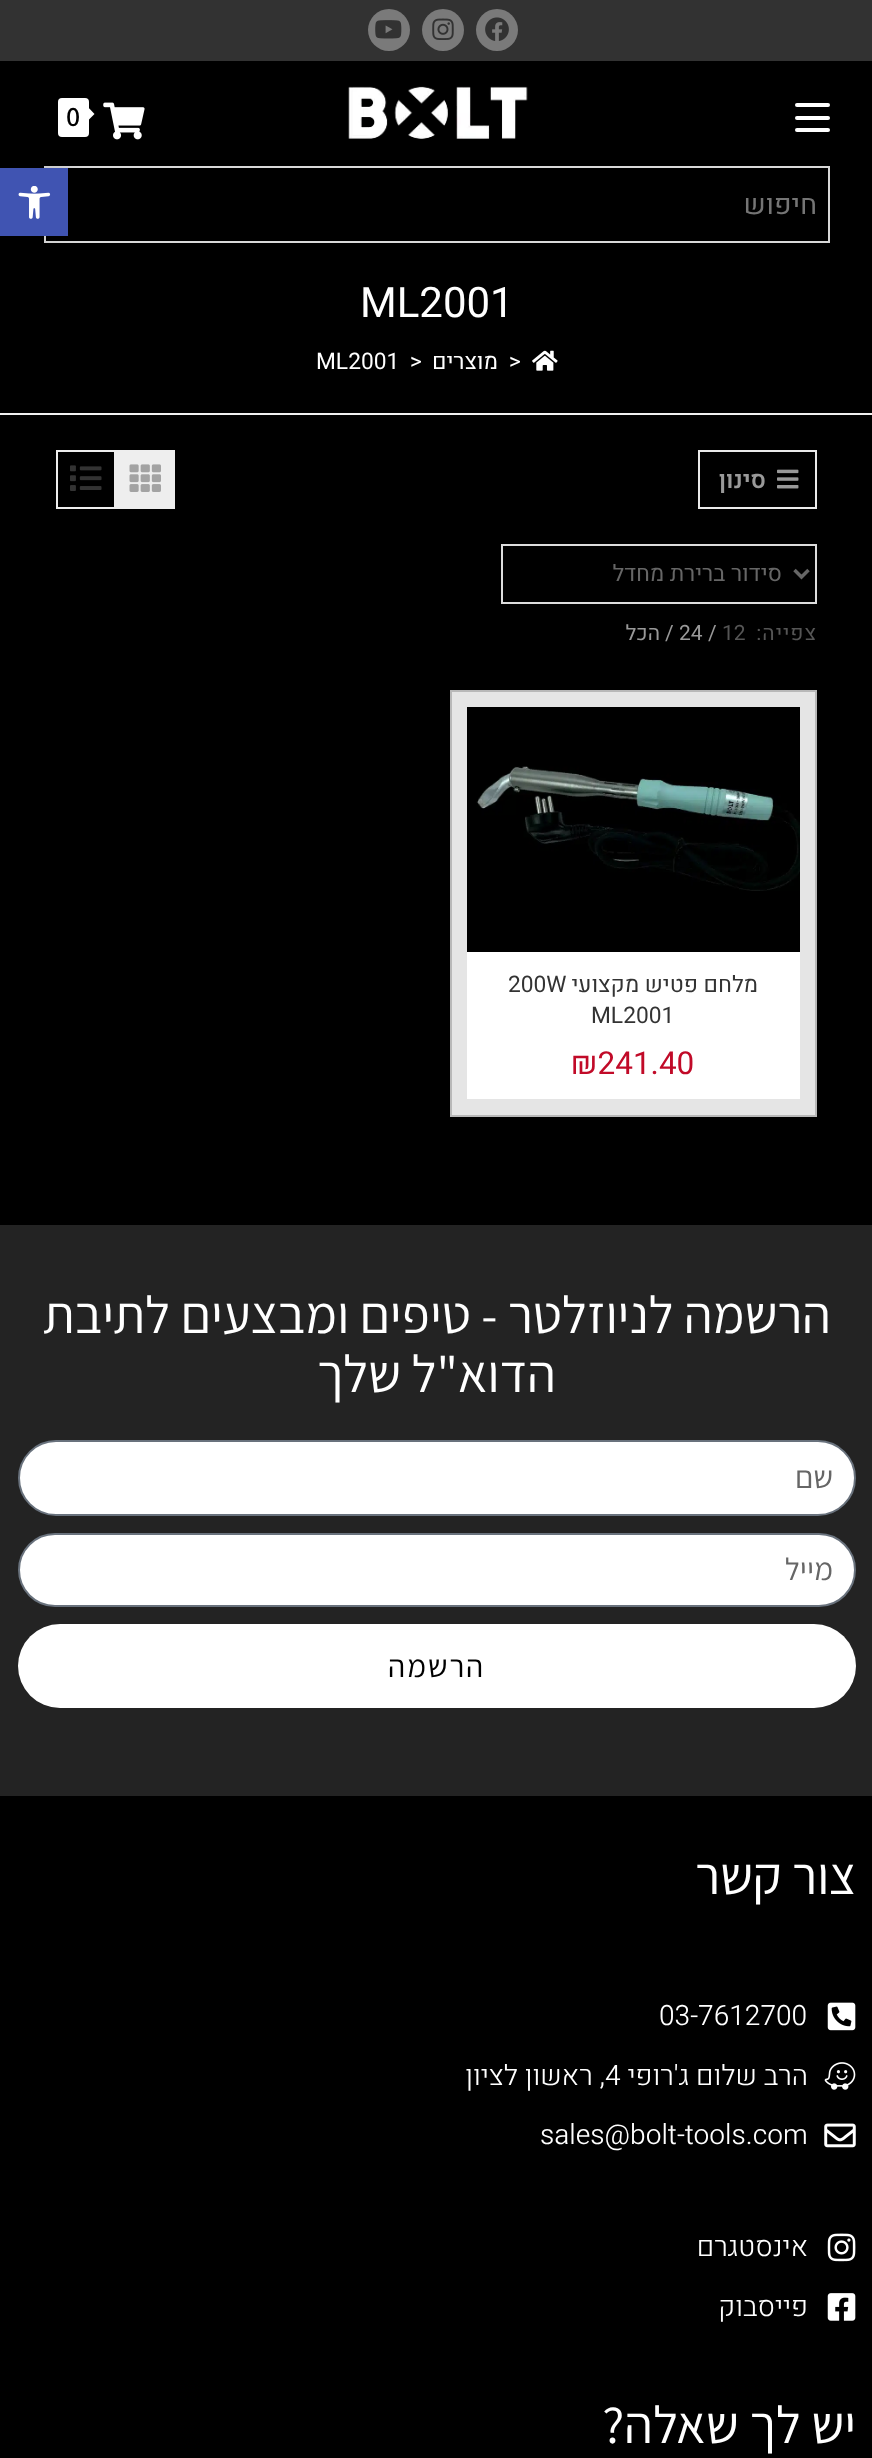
<!DOCTYPE html>
<meta charset="utf-8">
<style>body { margin: 0 } canvas { display: block }</style>
<canvas id="canvas" width="872" height="2458"></canvas>
<script type="module">
  const canvas = document.getElementById("canvas");
  const ctx = canvas.getContext("2d");
  ctx.miterLimit = 4;
  ctx.fontKerning = "normal";
  async function loadImage(src) {
    const img = new Image();
    img.src = src;
    await img.decode();
    return img;
  }

  ctx.fillStyle = "#000000";
  ctx.fillRect(0, 0, 872, 2458);
  ctx.fillStyle = "#323232";
  ctx.fillRect(0, 0, 872, 61);
  ctx.fillStyle = "#7a7a7a";
  ctx.beginPath();
  ctx.arc(497, 30, 21, 0, Math.PI * 2);
  ctx.fill();
  ctx.drawImage(await loadImage("img1.png"), 485, 17, 24, 24);
  ctx.beginPath();
  ctx.arc(443, 30, 21, 0, Math.PI * 2);
  ctx.fill();
  ctx.drawImage(await loadImage("img2.png"), 432, 18, 22, 22);
  ctx.beginPath();
  ctx.arc(389, 30, 21, 0, Math.PI * 2);
  ctx.fill();
  ctx.drawImage(await loadImage("img3.png"), 375, 20, 27, 19);
  ctx.fillStyle = "#ffffff";
  ctx.beginPath();
  ctx.roundRect(795, 128, 35, 4, 2);
  ctx.fill();
  ctx.beginPath();
  ctx.roundRect(795, 103, 35, 4, 2);
  ctx.fill();
  ctx.beginPath();
  ctx.roundRect(795, 116, 35, 4, 2);
  ctx.fill();
  ctx.drawImage(await loadImage("img4.png"), 348, 86, 180, 53);
  ctx.drawImage(await loadImage("img5.png"), 103, 102, 42, 38);
  ctx.beginPath();
  ctx.roundRect(58, 98, 31, 39, 4);
  ctx.fill();
  ctx.beginPath();
  ctx.moveTo(86, 122.5);
  ctx.lineTo(86, 105);
  ctx.lineTo(94.5, 114);
  ctx.closePath();
  ctx.fill();
  ctx.font = "600 28px Assistant";
  ctx.fillStyle = "#000000";
  ctx.fillText("0", 66, 126);
  ctx.strokeStyle = "#d8d8d8";
  ctx.lineWidth = 2;
  ctx.strokeRect(45, 167, 784, 75);
  ctx.direction = "rtl";
  ctx.font = "28px Heebo";
  ctx.fillStyle = "#757575";
  ctx.fillText("חיפוש", 817, 214);
  ctx.fillStyle = "#f1f1f1";
  ctx.fillRect(0, 413, 872, 2);
  ctx.direction = "ltr";
  ctx.font = "42px Heebo";
  ctx.fillStyle = "#ffffff";
  ctx.fillText("ML2001", 360, 317);
  ctx.drawImage(await loadImage("img6.png"), 532, 350, 26, 21);
  ctx.font = "22.75px Heebo";
  ctx.fillText(">", 509, 369);
  ctx.direction = "rtl";
  ctx.fillText("מוצרים", 498, 369);
  ctx.direction = "ltr";
  ctx.fillText(">", 410, 369);
  ctx.fillText("ML2001", 316, 369);
  ctx.strokeStyle = "#eaeaea";
  ctx.strokeRect(699, 451, 117, 57);
  ctx.drawImage(await loadImage("img7.png"), 777, 469, 22, 20);
  ctx.direction = "rtl";
  ctx.font = "600 24px Heebo";
  ctx.fillStyle = "#999999";
  ctx.fillText("סינון", 766, 488);
  ctx.fillStyle = "#eeeeee";
  ctx.fillRect(116, 450, 59, 59);
  ctx.drawImage(await loadImage("img8.png"), 129, 464, 32, 28);
  ctx.strokeStyle = "#eeeeee";
  ctx.strokeRect(57, 451, 58, 57);
  ctx.drawImage(await loadImage("img9.png"), 70, 465, 32, 26);
  ctx.strokeStyle = "#dddddd";
  ctx.strokeRect(502, 545, 314, 58);
  ctx.beginPath();
  ctx.moveTo(794.5, 570);
  ctx.lineTo(801.5, 577);
  ctx.lineTo(808.5, 570);
  ctx.strokeStyle = "#666666";
  ctx.lineWidth = 3.5;
  ctx.stroke();
  ctx.font = "22.75px Heebo";
  ctx.fillStyle = "#666666";
  ctx.fillText("סידור ברירת מחדל", 782, 581);
  ctx.letterSpacing = "1px";
  ctx.font = "21px Heebo";
  ctx.fillStyle = "#555555";
  ctx.fillText("צפייה:", 817, 640);
  ctx.letterSpacing = "0px";
  ctx.direction = "ltr";
  ctx.fillText("12", 722, 640);
  ctx.fillStyle = "#999999";
  ctx.fillText("/", 708, 640);
  ctx.fillText("24", 679, 640);
  ctx.fillText("/", 665, 640);
  ctx.direction = "rtl";
  ctx.fillText("הכל", 660, 640);
  ctx.fillStyle = "#e5e5e5";
  ctx.beginPath();
  ctx.rect(451, 691, 365, 425);
  ctx.fill();
  ctx.strokeStyle = "#b8b8b8";
  ctx.lineWidth = 2;
  ctx.stroke();
  ctx.fillStyle = "#000000";
  ctx.fillRect(467, 707, 333, 245);
  ctx.drawImage(await loadImage("img10.png"), 476, 766, 324, 125);
  ctx.fillStyle = "#ffffff";
  ctx.fillRect(467, 952, 333, 147);
  ctx.font = "22.75px Heebo";
  ctx.fillStyle = "#333333";
  ctx.fillText("מלחם פטיש מקצועי", 758, 992);
  ctx.direction = "ltr";
  ctx.fillText("200W", 508, 992);
  ctx.fillText("ML2001", 591, 1023);
  ctx.font = "31.5px Heebo";
  ctx.fillStyle = "#c10a28";
  ctx.fillText("₪241.40", 571, 1074);
  ctx.fillStyle = "#232323";
  ctx.fillRect(0, 1225, 872, 571);
  ctx.direction = "rtl";
  ctx.font = "52.5px Assistant";
  ctx.fillStyle = "#ffffff";
  ctx.fillText("הרשמה לניוזלטר - טיפים ומבצעים לתיבת", 831, 1333);
  ctx.fillText("הדוא\"ל שלך", 556, 1392);
  ctx.beginPath();
  ctx.roundRect(19, 1441, 836, 74, 37);
  ctx.fill();
  ctx.strokeStyle = "#69727d";
  ctx.stroke();
  ctx.font = "31.5px Assistant";
  ctx.fillStyle = "#666666";
  ctx.fillText("שם", 833, 1488);
  ctx.fillStyle = "#ffffff";
  ctx.beginPath();
  ctx.roundRect(19, 1534, 836, 72, 36);
  ctx.fill();
  ctx.stroke();
  ctx.fillStyle = "#666666";
  ctx.fillText("מייל", 833, 1580);
  ctx.fillStyle = "#ffffff";
  ctx.beginPath();
  ctx.roundRect(18, 1624, 838, 84, 42);
  ctx.fill();
  ctx.letterSpacing = "1.75px";
  ctx.fillStyle = "#000000";
  ctx.fillText("הרשמה", 485, 1677);
  ctx.letterSpacing = "0px";
  ctx.font = "52.5px Assistant";
  ctx.fillStyle = "#ffffff";
  ctx.fillText("צור קשר", 856, 1894);
  ctx.drawImage(await loadImage("img11.png"), 827, 2002, 29, 29);
  ctx.direction = "ltr";
  ctx.font = "300 28px Heebo";
  ctx.fillText("03-7612700", 659, 2025);
  ctx.drawImage(await loadImage("img12.png"), 824, 2062, 32, 28);
  ctx.direction = "rtl";
  ctx.fillText("הרב שלום ג'רופי", 808, 2085);
  ctx.direction = "ltr";
  ctx.fillText("4", 605, 2085);
  ctx.direction = "rtl";
  ctx.fillText(", ראשון לציון", 605, 2085);
  ctx.drawImage(await loadImage("img13.png"), 824, 2123, 32, 25);
  ctx.direction = "ltr";
  ctx.fillText("sales@bolt-tools.com", 540, 2144);
  ctx.drawImage(await loadImage("img14.png"), 827, 2233, 29, 29);
  ctx.direction = "rtl";
  ctx.fillText("אינסטגרם", 808, 2256);
  ctx.drawImage(await loadImage("img15.png"), 827, 2293, 29, 28);
  ctx.fillText("פייסבוק", 808, 2316);
  ctx.font = "52.5px Assistant";
  ctx.fillText("יש לך שאלה?", 856, 2443);
  ctx.fillStyle = "rgba(0, 0, 0, 0.1)";
  ctx.filter = "blur(9px)";
  ctx.beginPath();
  ctx.rect(0, 168, 68, 68);
  ctx.fill();
  ctx.filter = "none";
  ctx.fillStyle = "#4054b2";
  ctx.fillRect(0, 168, 68, 68);
  ctx.drawImage(await loadImage("img16.png"), 18, 186, 33, 33);
</script>
